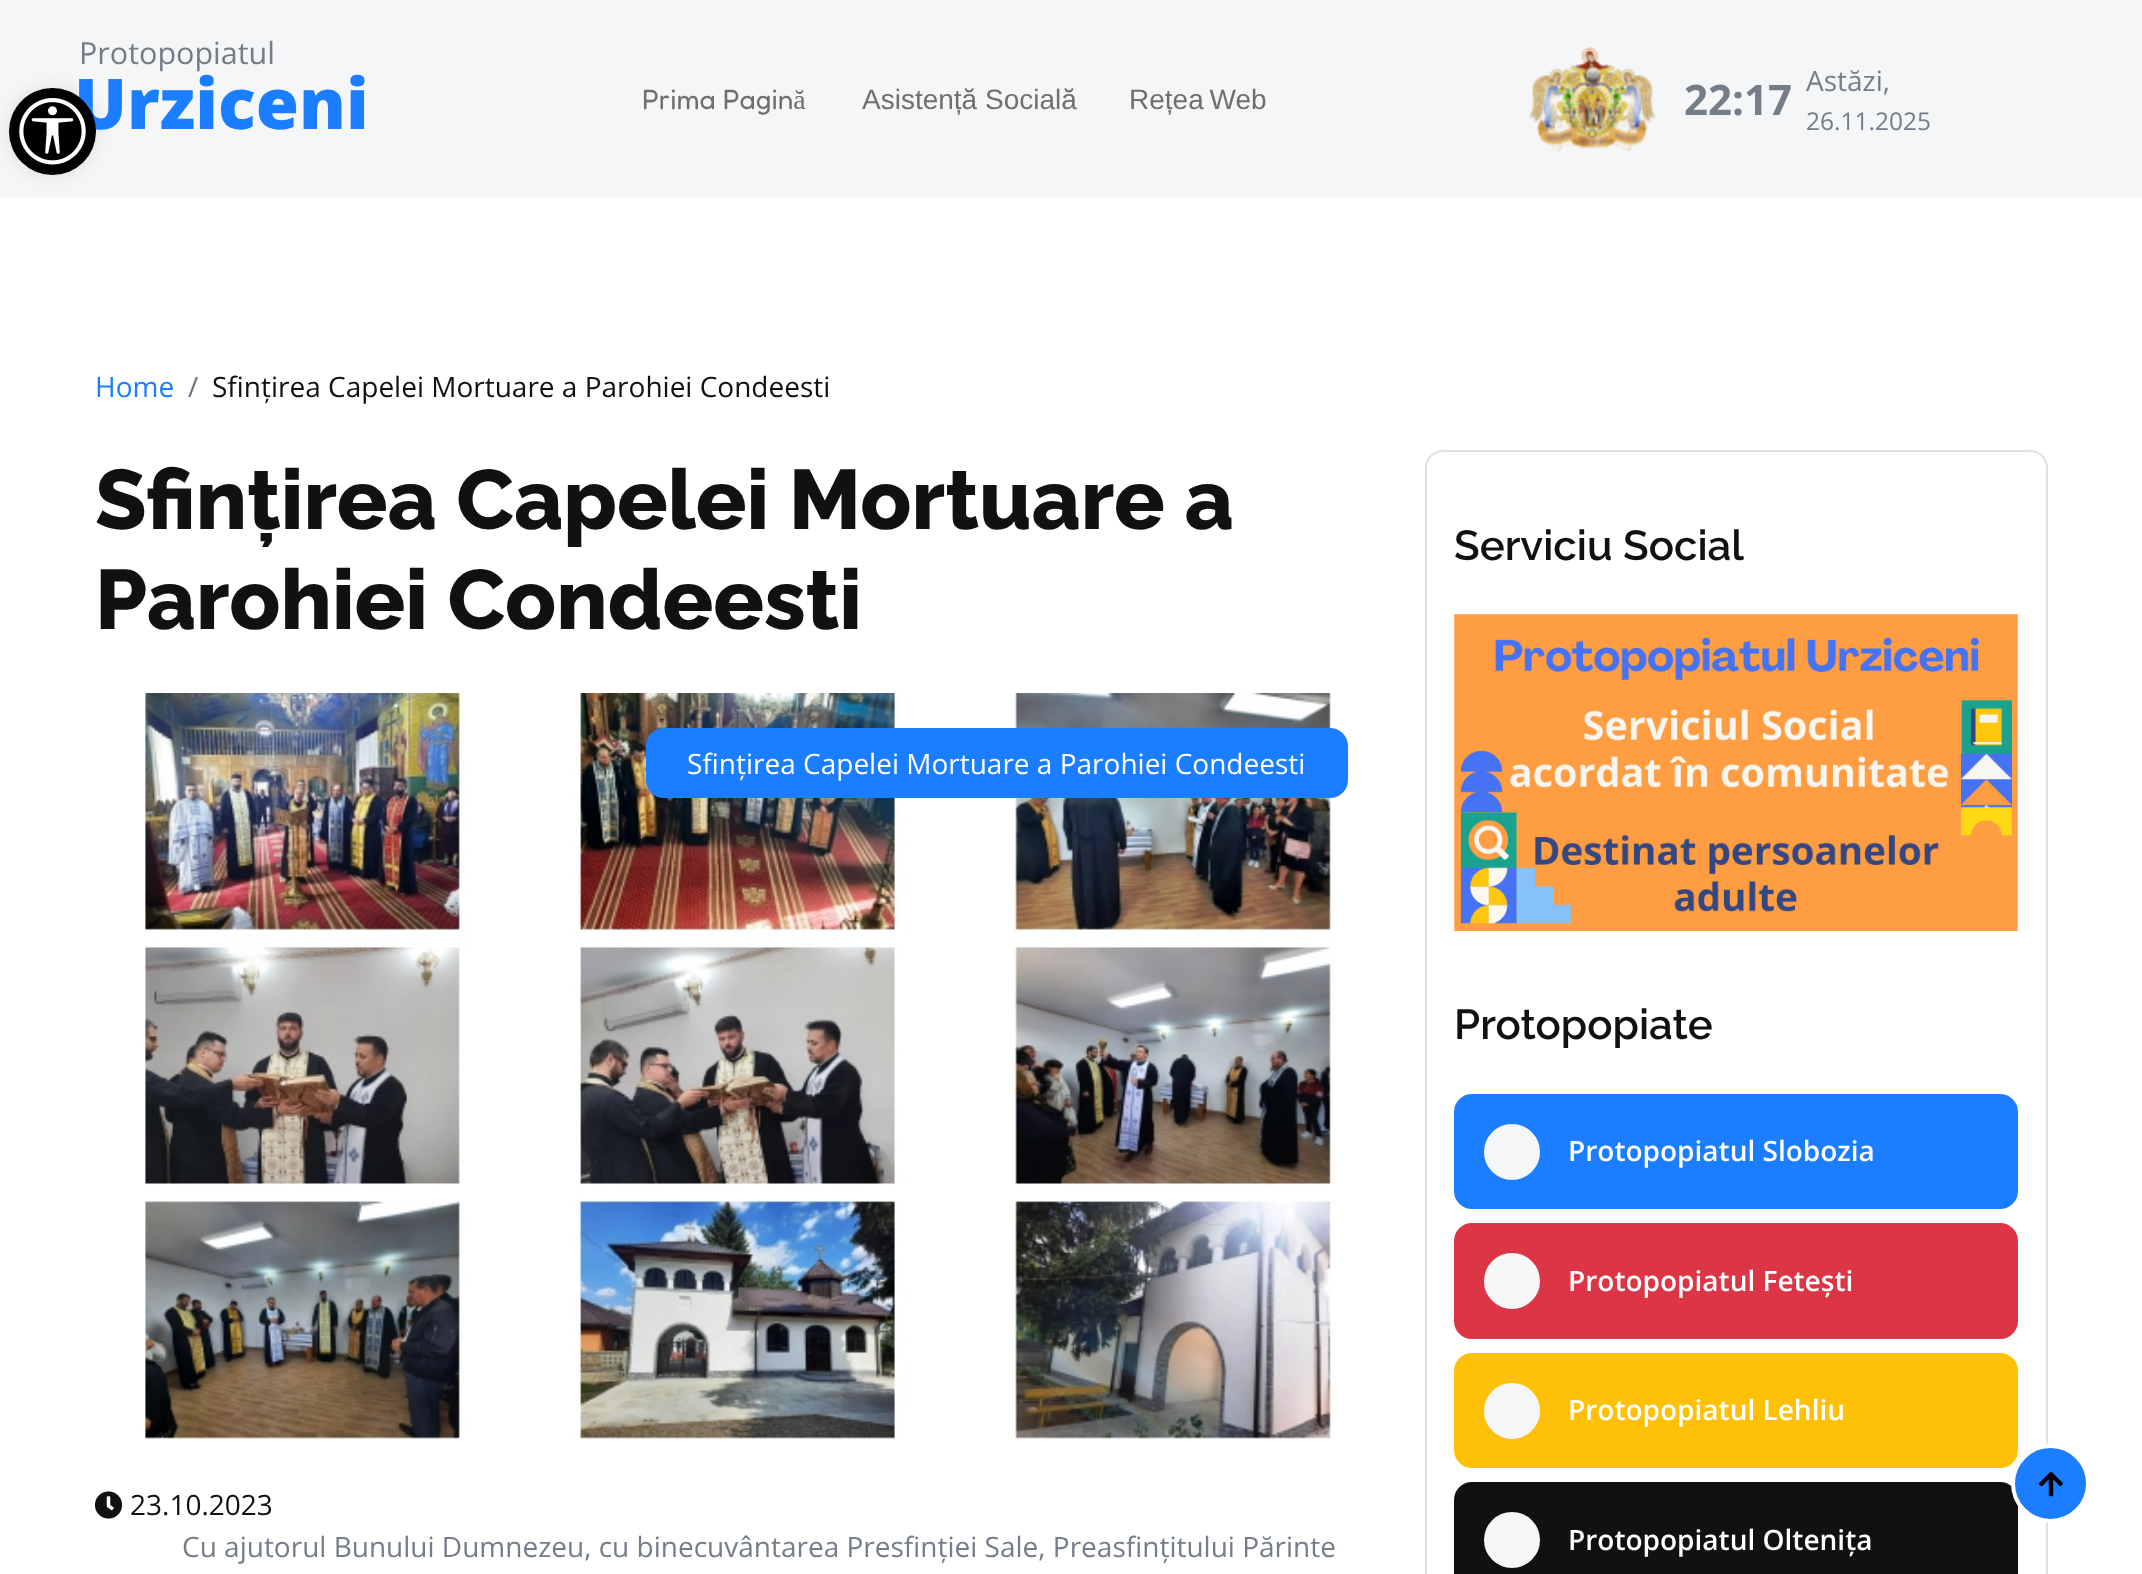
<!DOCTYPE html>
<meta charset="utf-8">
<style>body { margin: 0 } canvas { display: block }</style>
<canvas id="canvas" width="2142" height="1574"></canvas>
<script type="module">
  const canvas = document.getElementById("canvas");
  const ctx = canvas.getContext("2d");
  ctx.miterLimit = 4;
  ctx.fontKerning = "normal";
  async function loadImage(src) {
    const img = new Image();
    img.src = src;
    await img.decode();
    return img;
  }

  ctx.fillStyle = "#ffffff";
  ctx.fillRect(0, 0, 2142, 1574);
  ctx.fillStyle = "#f4f6f8";
  ctx.fillRect(0, 0, 2142, 198);
  ctx.fillStyle = "rgba(0, 0, 0, 0.1)";
  ctx.filter = "blur(9px)";
  ctx.beginPath();
  ctx.roundRect(9, 88, 87, 87, 43.5);
  ctx.fill();
  ctx.filter = "none";
  ctx.font = "800 70px Open Sans";
  ctx.fillStyle = "#1b7dff";
  ctx.fillText("Urziceni", 74, 129);
  ctx.drawImage(await loadImage("img2.png"), 89, 109, 3, 5);
  ctx.fillStyle = "#000000";
  ctx.beginPath();
  ctx.arc(52.5, 131.5, 43.5, 0, Math.PI * 2);
  ctx.fill();
  ctx.drawImage(await loadImage("img1.png"), 19, 98, 67, 67);
  ctx.font = "30.5px Open Sans";
  ctx.fillStyle = "#747d88";
  ctx.fillText("Protopopiatul", 79, 64);
  ctx.font = "28px Fredoka";
  ctx.fillStyle = "#6e6f70";
  ctx.fillText("Prima Pagină", 642, 109);
  ctx.font = "28px Liberation Sans";
  ctx.fillText("Asistență Socială", 862, 109);
  ctx.wordSpacing = "-2px";
  ctx.fillText("Rețea Web", 1129, 109);
  ctx.drawImage(await loadImage("img3.png"), 1529, 46, 127, 106);
  ctx.wordSpacing = "0px";
  ctx.font = "bold 42px Open Sans";
  ctx.fillStyle = "#747d88";
  ctx.fillText("22:17", 1684, 115);
  ctx.font = "28px Open Sans";
  ctx.fillText("Astăzi,", 1806, 91);
  ctx.font = "24.5px Open Sans";
  ctx.fillText("26.11.2025", 1806, 130);
  ctx.font = "28px Open Sans";
  ctx.fillStyle = "#1b7dff";
  ctx.fillText("Home", 95, 397);
  ctx.fillStyle = "#6c757d";
  ctx.fillText("/", 188, 397);
  ctx.fillStyle = "#111111";
  ctx.fillText("Sfințirea Capelei Mortuare a Parohiei Condeesti", 212, 397);
  ctx.font = "800 84px Raleway";
  ctx.fillText("Sfințirea Capelei Mortuare a", 95, 529);
  ctx.fillText("Parohiei Condeesti", 95, 629);
  ctx.drawImage(await loadImage("img4.png"), 143, 693, 1191, 747);
  ctx.fillStyle = "#1b7dff";
  ctx.beginPath();
  ctx.roundRect(646, 728, 702, 70, 18);
  ctx.fill();
  ctx.font = "28px Open Sans";
  ctx.fillStyle = "#ffffff";
  ctx.fillText("Sfințirea Capelei Mortuare a Parohiei Condeesti", 687, 774);
  ctx.drawImage(await loadImage("img5.png"), 94, 1491, 29, 28);
  ctx.fillStyle = "#111111";
  ctx.fillText("23.10.2023", 130, 1515);
  ctx.fillStyle = "#747d88";
  ctx.fillText("Cu ajutorul Bunului Dumnezeu, cu binecuvântarea Presfinției Sale, Preasfințitului Părinte", 182, 1557);
  ctx.beginPath();
  ctx.roundRect(1426, 451, 621, 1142, 17);
  ctx.strokeStyle = "#dee2e6";
  ctx.lineWidth = 2;
  ctx.stroke();
  ctx.font = "600 42px Raleway";
  ctx.fillStyle = "#111111";
  ctx.fillText("Serviciu Social", 1454, 560);
  ctx.drawImage(await loadImage("img6.png"), 1454, 614, 564, 317);
  ctx.fillText("Protopopiate", 1454, 1039);
  ctx.fillStyle = "#1b7dff";
  ctx.beginPath();
  ctx.roundRect(1455, 1095, 562, 113, 17);
  ctx.fill();
  ctx.strokeStyle = "#1b7dff";
  ctx.stroke();
  ctx.fillStyle = "#f4f6f8";
  ctx.beginPath();
  ctx.arc(1512, 1152, 27, 0, Math.PI * 2);
  ctx.fill();
  ctx.strokeStyle = "#f4f6f8";
  ctx.stroke();
  ctx.font = "600 28px Open Sans";
  ctx.fillStyle = "#ffffff";
  ctx.fillText("Protopopiatul Slobozia", 1568, 1161);
  ctx.fillStyle = "#dc3545";
  ctx.beginPath();
  ctx.roundRect(1455, 1224, 562, 114, 17);
  ctx.fill();
  ctx.strokeStyle = "#dc3545";
  ctx.stroke();
  ctx.fillStyle = "#f4f6f8";
  ctx.beginPath();
  ctx.arc(1512, 1281, 27, 0, Math.PI * 2);
  ctx.fill();
  ctx.strokeStyle = "#f4f6f8";
  ctx.stroke();
  ctx.fillStyle = "#ffffff";
  ctx.fillText("Protopopiatul Fetești", 1568, 1291);
  ctx.fillStyle = "#ffc107";
  ctx.beginPath();
  ctx.roundRect(1455, 1354, 562, 113, 17);
  ctx.fill();
  ctx.strokeStyle = "#ffc107";
  ctx.stroke();
  ctx.fillStyle = "#f4f6f8";
  ctx.beginPath();
  ctx.arc(1512, 1411, 27, 0, Math.PI * 2);
  ctx.fill();
  ctx.strokeStyle = "#f4f6f8";
  ctx.stroke();
  ctx.fillStyle = "#ffffff";
  ctx.fillText("Protopopiatul Lehliu", 1568, 1420);
  ctx.fillStyle = "#111111";
  ctx.beginPath();
  ctx.roundRect(1455, 1483, 562, 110, 17);
  ctx.fill();
  ctx.strokeStyle = "#111111";
  ctx.stroke();
  ctx.fillStyle = "#f4f6f8";
  ctx.beginPath();
  ctx.arc(1512, 1540, 27, 0, Math.PI * 2);
  ctx.fill();
  ctx.strokeStyle = "#f4f6f8";
  ctx.stroke();
  ctx.fillStyle = "#ffffff";
  ctx.fillText("Protopopiatul Oltenița", 1568, 1550);
  ctx.fillStyle = "#1b7dff";
  ctx.beginPath();
  ctx.arc(2050.5, 1483.5, 37.5, 0, Math.PI * 2);
  ctx.fill();
  ctx.strokeStyle = "#ffffff";
  ctx.lineWidth = 4;
  ctx.stroke();
  ctx.drawImage(await loadImage("img7.png"), 2039, 1471, 24, 26);
</script>
